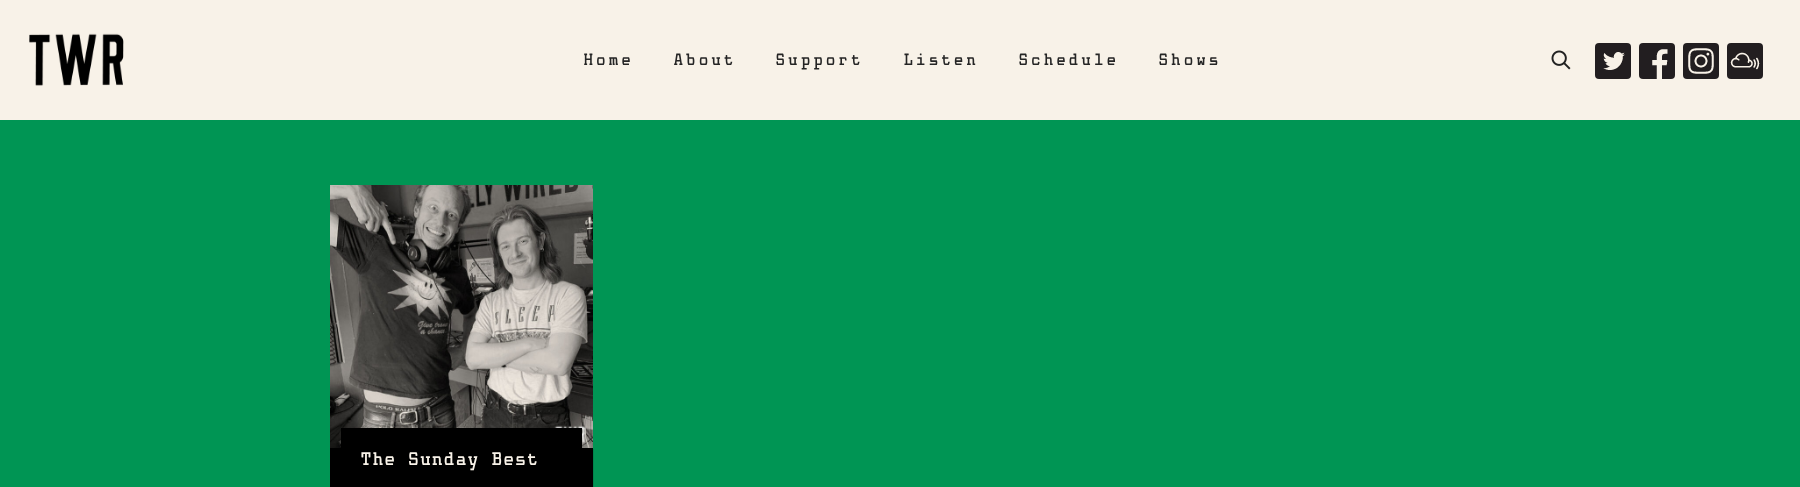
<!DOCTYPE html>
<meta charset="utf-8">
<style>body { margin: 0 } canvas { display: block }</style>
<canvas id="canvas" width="1800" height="487"></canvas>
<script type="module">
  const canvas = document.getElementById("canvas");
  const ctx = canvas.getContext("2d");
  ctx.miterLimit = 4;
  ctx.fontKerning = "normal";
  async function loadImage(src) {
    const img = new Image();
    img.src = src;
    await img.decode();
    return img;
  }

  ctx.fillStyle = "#009554";
  ctx.fillRect(0, 0, 1800, 487);
  ctx.fillStyle = "#f8f2e8";
  ctx.fillRect(0, 0, 1800, 120);
  ctx.drawImage(await loadImage("img1.png"), 29, 33, 95, 53);
  ctx.letterSpacing = "2px";
  ctx.font = "16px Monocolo";
  ctx.fillStyle = "#252525";
  ctx.fillText("Home", 583, 65);
  ctx.fillText("About", 673, 65);
  ctx.fillText("Support", 775, 65);
  ctx.fillText("Listen", 903, 65);
  ctx.fillText("Schedule", 1018, 65);
  ctx.fillText("Shows", 1158, 65);
  ctx.drawImage(await loadImage("img2.png"), 1551, 50, 20, 20);
  ctx.drawImage(await loadImage("img3.png"), 1595, 43, 36, 36);
  ctx.drawImage(await loadImage("img4.png"), 1639, 43, 36, 36);
  ctx.drawImage(await loadImage("img5.png"), 1683, 43, 36, 36);
  ctx.drawImage(await loadImage("img6.png"), 1727, 43, 36, 36);
  ctx.fillStyle = "rgba(0, 0, 0, 0.1)";
  ctx.filter = "blur(0.5px)";
  ctx.beginPath();
  ctx.rect(331, 449, 263, 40);
  ctx.fill();
  ctx.filter = "none";
  ctx.drawImage(await loadImage("img7.png"), 330, 185, 263, 263);
  ctx.fillStyle = "#000000";
  ctx.fillRect(330, 448, 263, 39);
  ctx.fillRect(341, 428, 241, 20);
  ctx.letterSpacing = "0px";
  ctx.font = "18px Monocolo";
  ctx.fillStyle = "#f8f2e8";
  ctx.fillText("The Sunday Best", 360, 465);
</script>
